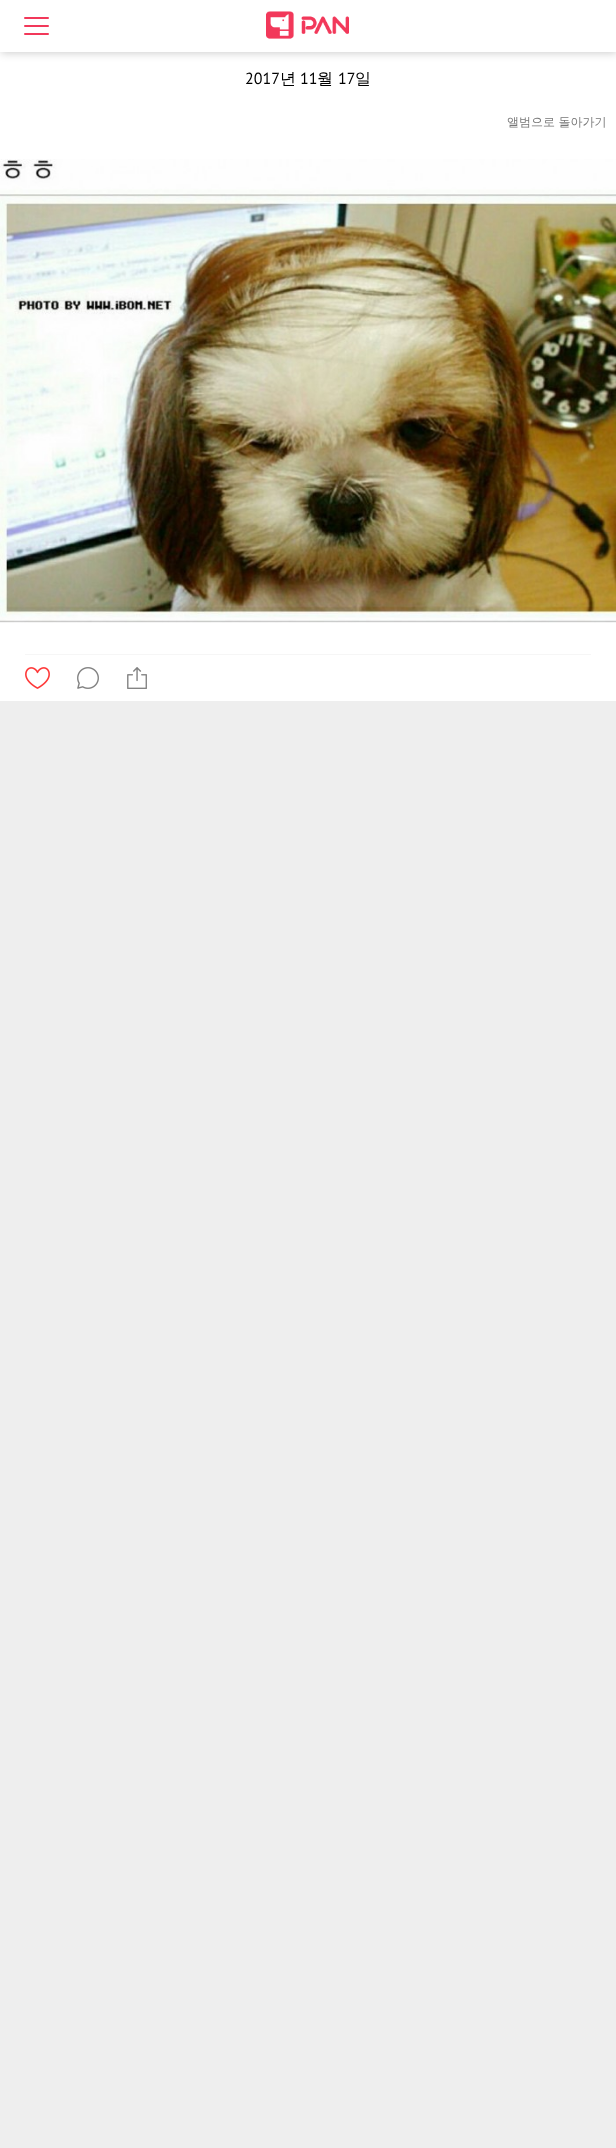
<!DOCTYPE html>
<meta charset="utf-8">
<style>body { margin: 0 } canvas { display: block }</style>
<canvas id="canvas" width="616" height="2148"></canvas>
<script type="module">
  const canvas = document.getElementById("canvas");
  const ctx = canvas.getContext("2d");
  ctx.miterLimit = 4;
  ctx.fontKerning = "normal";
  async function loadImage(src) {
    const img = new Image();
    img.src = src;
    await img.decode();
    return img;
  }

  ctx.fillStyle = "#eeeeee";
  ctx.fillRect(0, 0, 616, 2148);
  ctx.fillStyle = "#ffffff";
  ctx.fillRect(0, 52, 616, 649);
  ctx.fillStyle = "rgba(0, 0, 0, 0.2)";
  ctx.filter = "blur(4px)";
  ctx.beginPath();
  ctx.rect(1, 0, 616, 53);
  ctx.fill();
  ctx.filter = "none";
  ctx.fillStyle = "#ffffff";
  ctx.fillRect(0, 0, 616, 52);
  ctx.drawImage(await loadImage("img1.png"), 266, 11, 83, 28);
  ctx.fillStyle = "#f2385a";
  ctx.beginPath();
  ctx.roundRect(24, 17, 25, 2, 1);
  ctx.fill();
  ctx.beginPath();
  ctx.roundRect(24, 25, 25, 2, 1);
  ctx.fill();
  ctx.beginPath();
  ctx.roundRect(24, 33, 25, 2, 1);
  ctx.fill();
  ctx.font = "16px PT Sans";
  ctx.fillStyle = "#000000";
  ctx.fillText("2017", 245, 84);
  ctx.font = "500 16px WenQuanYi Zen Hei";
  ctx.fillText("년", 280, 84);
  ctx.font = "16px PT Sans";
  ctx.fillText("11", 300, 84);
  ctx.font = "500 16px WenQuanYi Zen Hei";
  ctx.fillText("월", 317, 84);
  ctx.font = "16px PT Sans";
  ctx.fillText("17", 338, 84);
  ctx.font = "500 16px WenQuanYi Zen Hei";
  ctx.fillText("일", 355, 84);
  ctx.font = "500 12px WenQuanYi Zen Hei";
  ctx.fillStyle = "#777777";
  ctx.fillText("앨범으로 돌아가기", 507, 126);
  ctx.drawImage(await loadImage("img2.png"), 0, 159, 616, 464);
  ctx.fillStyle = "#f6f6f6";
  ctx.fillRect(25, 654, 566, 1);
  ctx.drawImage(await loadImage("img3.png"), 25, 667, 25, 22);
  ctx.drawImage(await loadImage("img4.png"), 77, 667, 22, 22);
  ctx.drawImage(await loadImage("img5.png"), 127, 667, 20, 22);
</script>
